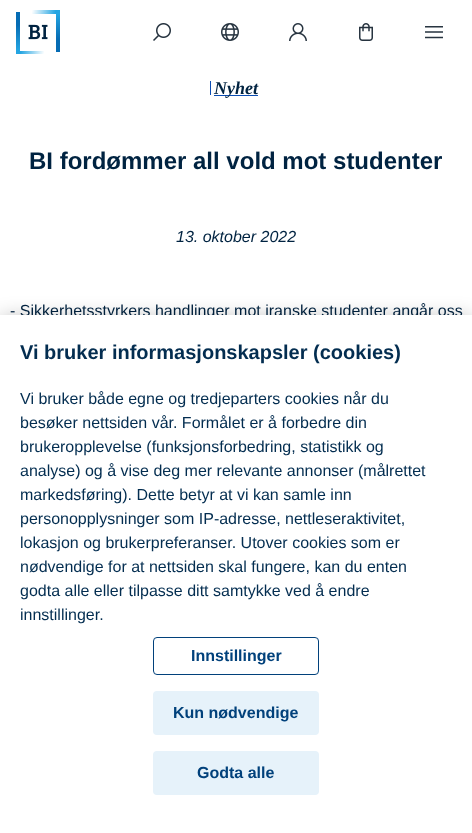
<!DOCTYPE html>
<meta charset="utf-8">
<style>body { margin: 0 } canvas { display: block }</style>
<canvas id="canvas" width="472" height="833"></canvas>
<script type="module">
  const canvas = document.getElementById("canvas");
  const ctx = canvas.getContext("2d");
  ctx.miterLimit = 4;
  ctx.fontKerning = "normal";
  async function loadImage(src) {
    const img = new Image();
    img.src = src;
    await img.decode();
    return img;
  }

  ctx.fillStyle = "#ffffff";
  ctx.fillRect(0, 0, 472, 833);
  ctx.drawImage(await loadImage("img1.png"), 16, 10, 44, 44);
  ctx.drawImage(await loadImage("img2.png"), 153, 23, 18, 18);
  ctx.drawImage(await loadImage("img3.png"), 221, 23, 18, 18);
  ctx.drawImage(await loadImage("img4.png"), 289, 23, 18, 18);
  ctx.drawImage(await loadImage("img5.png"), 359, 23, 14, 18);
  ctx.drawImage(await loadImage("img6.png"), 425, 26, 18, 13);
  ctx.fillStyle = "#0b4db4";
  ctx.fillRect(210, 81, 1, 14);
  ctx.fillRect(214, 95, 44, 1);
  ctx.font = "italic bold 18px Liberation Serif";
  ctx.fillStyle = "#002341";
  ctx.fillText("Nyhet", 214, 94);
  ctx.font = "bold 24px Liberation Sans";
  ctx.fillText("BI fordømmer all vold mot studenter", 29, 169);
  ctx.font = "italic 16px Liberation Sans";
  ctx.fillText("13. oktober 2022", 176, 242);
  ctx.font = "16px Liberation Sans";
  ctx.fillText("- Sikkerhetsstyrkers handlinger mot iranske studenter angår oss", 10, 316);
  ctx.fillStyle = "rgba(0, 0, 0, 0.2)";
  ctx.filter = "blur(9px)";
  ctx.beginPath();
  ctx.rect(0, 315, 472, 518);
  ctx.fill();
  ctx.filter = "none";
  ctx.fillStyle = "#ffffff";
  ctx.fillRect(0, 315, 472, 518);
  ctx.font = "bold 20px Liberation Sans";
  ctx.fillStyle = "#032d50";
  ctx.fillText("Vi bruker informasjonskapsler (cookies)", 20, 359);
  ctx.font = "16px Liberation Sans";
  ctx.fillText("Vi bruker både egne og tredjeparters cookies når du", 20, 404);
  ctx.fillText("besøker nettsiden vår. Formålet er å forbedre din", 20, 428);
  ctx.fillText("brukeropplevelse (funksjonsforbedring, statistikk og", 20, 452);
  ctx.fillText("analyse) og å vise deg mer relevante annonser (målrettet", 20, 476);
  ctx.fillText("markedsføring). Dette betyr at vi kan samle inn", 20, 500);
  ctx.fillText("personopplysninger som IP-adresse, nettleseraktivitet,", 20, 524);
  ctx.fillText("lokasjon og brukerpreferanser. Utover cookies som er", 20, 548);
  ctx.fillText("nødvendige for at nettsiden skal fungere, kan du enten", 20, 572);
  ctx.fillText("godta alle eller tilpasse ditt samtykke ved å endre", 20, 596);
  ctx.fillText("innstillinger.", 20, 620);
  ctx.beginPath();
  ctx.roundRect(153.5, 637.5, 165, 37, 3.5);
  ctx.strokeStyle = "#01417b";
  ctx.stroke();
  ctx.font = "bold 16px Liberation Sans";
  ctx.fillStyle = "#01417b";
  ctx.fillText("Innstillinger", 191, 661);
  ctx.fillStyle = "#e6f2fa";
  ctx.beginPath();
  ctx.roundRect(153, 691, 166, 44, 4);
  ctx.fill();
  ctx.fillStyle = "#01417b";
  ctx.fillText("Kun nødvendige", 173, 718);
  ctx.fillStyle = "#e6f2fa";
  ctx.beginPath();
  ctx.roundRect(153, 751, 166, 44, 4);
  ctx.fill();
  ctx.fillStyle = "#01417b";
  ctx.fillText("Godta alle", 197, 778);
</script>
